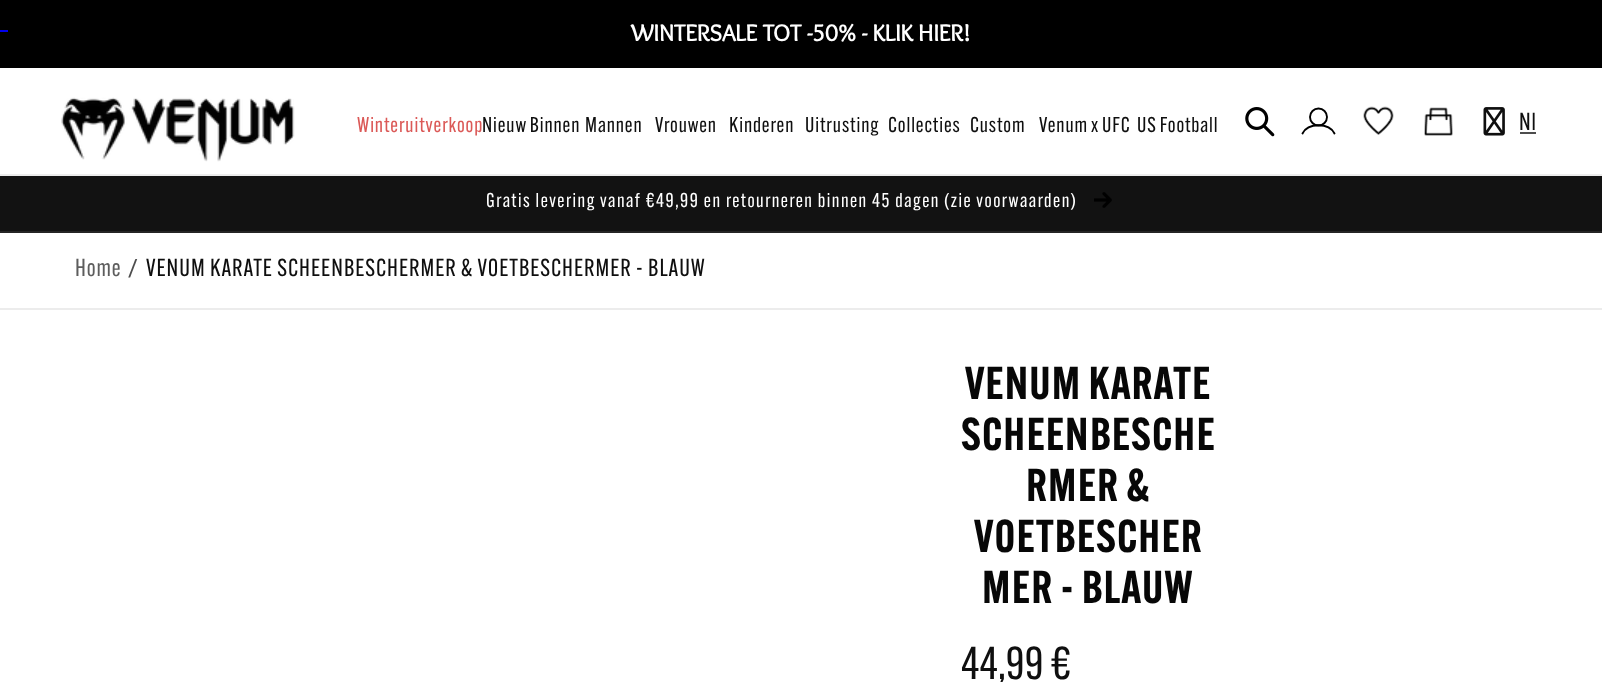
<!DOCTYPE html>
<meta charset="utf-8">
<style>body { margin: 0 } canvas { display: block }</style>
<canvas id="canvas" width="1602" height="682"></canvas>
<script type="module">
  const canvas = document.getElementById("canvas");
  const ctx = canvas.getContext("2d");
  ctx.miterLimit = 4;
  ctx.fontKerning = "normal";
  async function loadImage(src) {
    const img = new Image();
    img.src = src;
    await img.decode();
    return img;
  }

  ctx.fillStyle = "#ffffff";
  ctx.fillRect(0, 0, 1602, 682);
  ctx.fillStyle = "#000000";
  ctx.fillRect(0, 0, 1602, 68);
  ctx.fillStyle = "#0000ee";
  ctx.fillRect(0, 30, 8, 2);
  ctx.font = "bold 24px Overlock";
  ctx.fillStyle = "#ffffff";
  ctx.fillText("WINTERSALE TOT -50% - KLIK HIER!", 631, 41);
  ctx.fillStyle = "#ececec";
  ctx.fillRect(0, 174, 1602, 2);
  ctx.drawImage(await loadImage("img1.png"), 61, 97, 234, 65);
  ctx.letterSpacing = "0.9px";
  ctx.font = "21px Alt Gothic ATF";
  ctx.fillStyle = "#db5957";
  ctx.fillText("Winteruitverkoop", 357, 132);
  ctx.wordSpacing = "-1px";
  ctx.fillStyle = "#0f0f0f";
  ctx.fillText("Nieuw Binnen", 482, 132);
  ctx.wordSpacing = "0px";
  ctx.fillText("Mannen", 585, 132);
  ctx.fillText("Vrouwen", 655, 132);
  ctx.fillText("Kinderen", 729, 132);
  ctx.fillText("Uitrusting", 805, 132);
  ctx.fillText("Collecties", 888, 132);
  ctx.fillText("Custom", 970, 132);
  ctx.wordSpacing = "-1px";
  ctx.fillText("Venum x UFC", 1039, 132);
  ctx.fillText("US Football", 1137, 132);
  ctx.drawImage(await loadImage("img2.png"), 1245, 107, 30, 30);
  ctx.beginPath();
  ctx.arc(1318.5, 117, 8.5, 0, Math.PI * 2);
  ctx.strokeStyle = "#000000";
  ctx.lineWidth = 1.9;
  ctx.stroke();
  ctx.beginPath();
  ctx.moveTo(1334.5, 133.5);
  ctx.bezierCurveTo(1329, 122.5, 1308, 122.5, 1302.5, 133.5);
  ctx.lineCap = "round";
  ctx.stroke();
  ctx.drawImage(await loadImage("img3.png"), 1363, 106, 31, 29);
  ctx.drawImage(await loadImage("img4.png"), 1424, 107, 29, 29);
  ctx.drawImage(await loadImage("img5.png"), 1483, 107, 22, 29);
  ctx.wordSpacing = "0px";
  ctx.font = "24px Alt Gothic ATF";
  ctx.fillText("Nl", 1519, 130);
  ctx.fillStyle = "#4d4d4d";
  ctx.fillRect(1520, 132, 16, 2);
  ctx.fillStyle = "#121212";
  ctx.fillRect(0, 176, 1602, 55);
  ctx.fillStyle = "#252525";
  ctx.fillRect(0, 231, 1602, 2);
  ctx.letterSpacing = "1.5px";
  ctx.font = "19.5px Alt Gothic ATF";
  ctx.fillStyle = "#ffffff";
  ctx.fillText("Gratis levering vanaf €49,99 en retourneren binnen 45 dagen (zie voorwaarden)", 486, 207);
  ctx.drawImage(await loadImage("img6.png"), 1094, 192, 18, 16);
  ctx.fillStyle = "#ececec";
  ctx.fillRect(0, 308, 1602, 2);
  ctx.letterSpacing = "0.9px";
  ctx.font = "24px Alt Gothic ATF";
  ctx.fillStyle = "#5d5d5d";
  ctx.fillText("Home", 75, 276);
  ctx.font = "24px Roboto";
  ctx.fillStyle = "#4d4d4d";
  ctx.fillText("/", 128, 276);
  ctx.font = "24px Alt Gothic ATF";
  ctx.fillStyle = "#0f0f0f";
  ctx.fillText("VENUM KARATE SCHEENBESCHERMER & VOETBESCHERMER - BLAUW", 146, 276);
  ctx.font = "600 45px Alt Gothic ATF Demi";
  ctx.fillStyle = "#070707";
  ctx.fillText("VENUM KARATE", 965, 399);
  ctx.fillText("SCHEENBESCHE", 961, 450);
  ctx.fillText("RMER &", 1026, 501);
  ctx.fillText("VOETBESCHER", 974, 552);
  ctx.fillText("MER - BLAUW", 982, 603);
  ctx.letterSpacing = "0px";
  ctx.font = "45px Alt Gothic ATF";
  ctx.fillStyle = "#0f0f0f";
  ctx.fillText("44,99 €", 961, 679);
</script>
